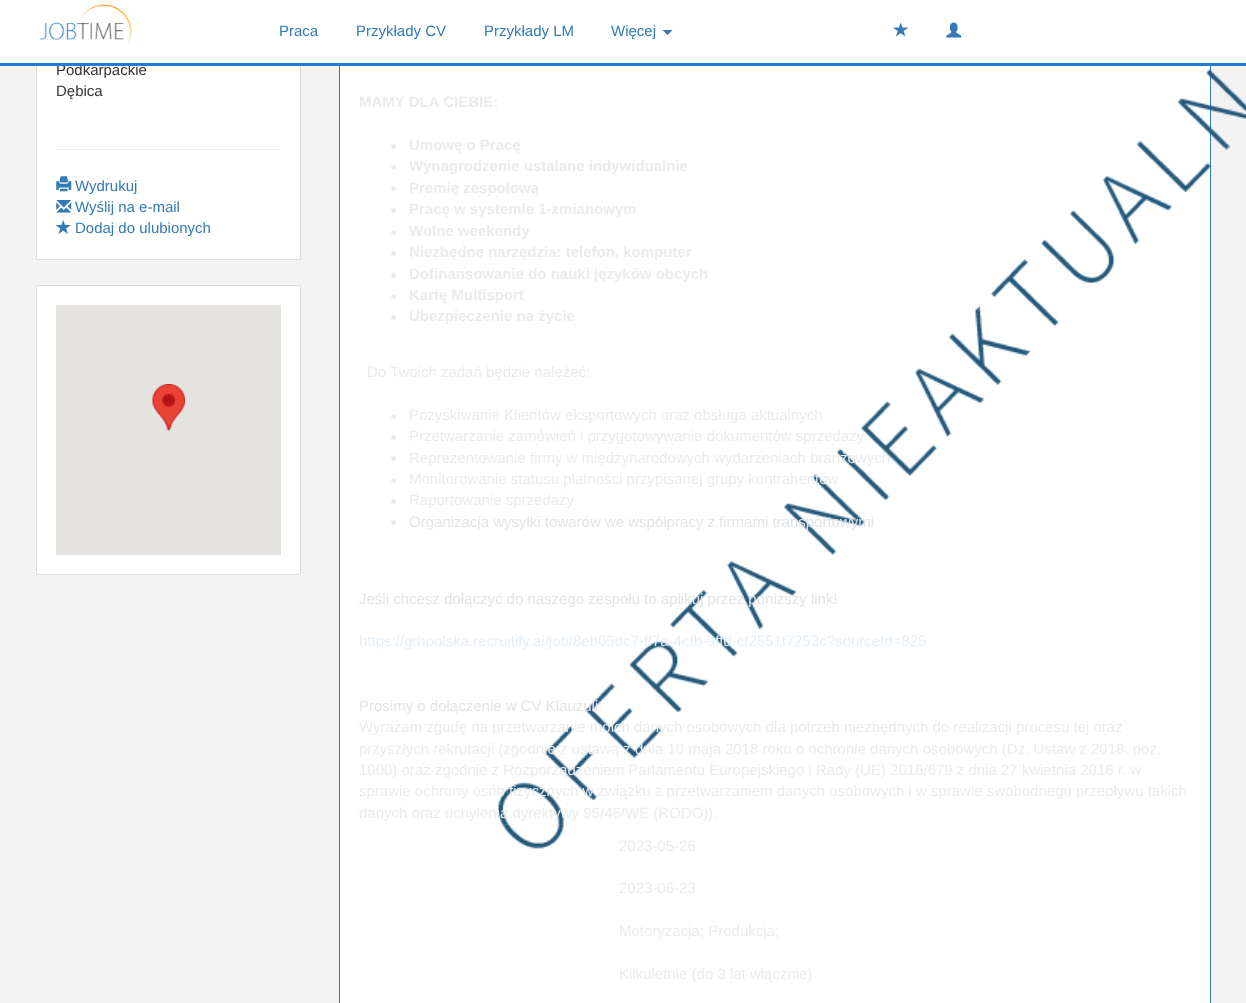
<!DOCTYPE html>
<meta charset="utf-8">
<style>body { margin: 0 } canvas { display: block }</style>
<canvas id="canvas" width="1246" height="1003"></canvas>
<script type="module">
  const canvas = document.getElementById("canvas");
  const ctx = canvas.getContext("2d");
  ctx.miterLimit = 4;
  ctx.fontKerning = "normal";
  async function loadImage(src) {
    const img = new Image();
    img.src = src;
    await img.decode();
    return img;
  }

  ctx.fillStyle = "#f3f3f3";
  ctx.fillRect(0, 0, 1246, 1003);
  ctx.fillStyle = "#ffffff";
  ctx.beginPath();
  ctx.roundRect(36.5, -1.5, 264, 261, 0.5);
  ctx.fill();
  ctx.strokeStyle = "#dcdcdc";
  ctx.stroke();
  ctx.fillRect(340, 66, 870, 937);
  ctx.strokeStyle = "#337ab7";
  ctx.strokeRect(339.5, -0.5, 871, 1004);
  ctx.fillRect(0, 0, 1246, 63);
  ctx.font = "15px Liberation Sans";
  ctx.fillStyle = "#333333";
  ctx.fillText("Podkarpackie", 56, 75);
  ctx.fillStyle = "#227ad1";
  ctx.fillRect(0, 63, 1246, 3);
  ctx.drawImage(await loadImage("img1.png"), 39, 4, 93, 42);
  ctx.fillStyle = "#337ab7";
  ctx.fillText("Praca", 279, 36);
  ctx.fillText("Przykłady CV", 356, 36);
  ctx.fillText("Przykłady LM", 484, 36);
  ctx.fillText("Więcej", 611, 36);
  ctx.beginPath();
  ctx.moveTo(662.5, 30);
  ctx.lineTo(672.5, 30);
  ctx.lineTo(667.5, 35);
  ctx.closePath();
  ctx.fill();
  ctx.drawImage(await loadImage("img2.png"), 893, 22, 16, 15);
  ctx.drawImage(await loadImage("img3.png"), 946, 22, 16, 16);
  ctx.fillStyle = "#333333";
  ctx.fillText("Dębica", 56, 96);
  ctx.fillStyle = "#eeeeee";
  ctx.fillRect(56, 149, 225, 1);
  ctx.drawImage(await loadImage("img4.png"), 56, 176, 16, 16);
  ctx.fillStyle = "#337ab7";
  ctx.fillText("Wydrukuj", 75, 191);
  ctx.drawImage(await loadImage("img5.png"), 56, 200, 16, 13);
  ctx.fillText("Wyślij na e-mail", 75, 212);
  ctx.drawImage(await loadImage("img6.png"), 55, 220, 16, 14);
  ctx.fillText("Dodaj do ulubionych", 75, 233);
  ctx.fillStyle = "#ffffff";
  ctx.beginPath();
  ctx.roundRect(36.5, 285.5, 264, 289, 0.5);
  ctx.fill();
  ctx.strokeStyle = "#dcdcdc";
  ctx.stroke();
  ctx.fillStyle = "#e5e3df";
  ctx.fillRect(56, 305, 225, 250);
  ctx.drawImage(await loadImage("img7.png"), 152, 384, 33, 47);
  ctx.drawImage(await loadImage("img8.png"), 498, 68, 748, 781);
  ctx.font = "bold 15px Liberation Sans";
  ctx.fillStyle = "#ebebeb";
  ctx.fillText("MAMY DLA CIEBIE:", 359, 107);
  ctx.beginPath();
  ctx.arc(393.5, 146.5, 2.5, 0, Math.PI * 2);
  ctx.fill();
  ctx.fillText("Umowę o Pracę", 409, 150);
  ctx.beginPath();
  ctx.arc(393.5, 167.5, 2.5, 0, Math.PI * 2);
  ctx.fill();
  ctx.fillText("Wynagrodzenie ustalane indywidualnie", 409, 171);
  ctx.beginPath();
  ctx.arc(393.5, 188.5, 2.5, 0, Math.PI * 2);
  ctx.fill();
  ctx.fillText("Premię zespołową", 409, 193);
  ctx.beginPath();
  ctx.arc(393.5, 210.5, 2.5, 0, Math.PI * 2);
  ctx.fill();
  ctx.fillText("Pracę w systemie 1-zmianowym", 409, 214);
  ctx.beginPath();
  ctx.arc(393.5, 232.5, 2.5, 0, Math.PI * 2);
  ctx.fill();
  ctx.fillText("Wolne weekendy", 409, 236);
  ctx.beginPath();
  ctx.arc(393.5, 253.5, 2.5, 0, Math.PI * 2);
  ctx.fill();
  ctx.fillText("Niezbędne narzędzia: telefon, komputer", 409, 257);
  ctx.beginPath();
  ctx.arc(393.5, 275.5, 2.5, 0, Math.PI * 2);
  ctx.fill();
  ctx.fillText("Dofinansowanie do nauki języków obcych", 409, 279);
  ctx.beginPath();
  ctx.arc(393.5, 296.5, 2.5, 0, Math.PI * 2);
  ctx.fill();
  ctx.fillText("Kartę Multisport", 409, 300);
  ctx.beginPath();
  ctx.arc(393.5, 317.5, 2.5, 0, Math.PI * 2);
  ctx.fill();
  ctx.fillText("Ubezpieczenie na życie", 409, 321);
  ctx.font = "15px Liberation Sans";
  ctx.fillText("Do Twoich zadań będzie należeć:", 367, 377);
  ctx.beginPath();
  ctx.arc(393.5, 416.5, 2.5, 0, Math.PI * 2);
  ctx.fill();
  ctx.fillText("Pozyskiwanie Klientów eksportowych oraz obsługa aktualnych", 409, 420);
  ctx.beginPath();
  ctx.arc(393.5, 437.5, 2.5, 0, Math.PI * 2);
  ctx.fill();
  ctx.fillText("Przetwarzanie zamówień i przygotowywanie dokumentów sprzedaży", 409, 441);
  ctx.beginPath();
  ctx.arc(393.5, 458.5, 2.5, 0, Math.PI * 2);
  ctx.fill();
  ctx.fillText("Reprezentowanie firmy w międzynarodowych wydarzeniach branżowych", 409, 463);
  ctx.beginPath();
  ctx.arc(393.5, 480.5, 2.5, 0, Math.PI * 2);
  ctx.fill();
  ctx.fillText("Monitorowanie statusu płatności przypisanej grupy kontrahentów", 409, 484);
  ctx.beginPath();
  ctx.arc(393.5, 501.5, 2.5, 0, Math.PI * 2);
  ctx.fill();
  ctx.fillText("Raportowanie sprzedaży", 409, 505);
  ctx.beginPath();
  ctx.arc(393.5, 522.5, 2.5, 0, Math.PI * 2);
  ctx.fill();
  ctx.fillStyle = "#e2e4e6";
  ctx.fillText("Organizacja wysyłki towarów we współpracy z firmami transportowymi", 409, 527);
  ctx.fillText("Jeśli chcesz dołączyć do naszego zespołu to aplikuj przez poniższy link!", 359, 604);
  ctx.fillStyle = "#e6eef5";
  ctx.fillText("https://grhpolska.recruitify.ai/job/8eb05dc7-ff7a-4cfb-affd-cf2551f7253c?sourceId=825", 359, 646);
  ctx.fillStyle = "#e2e4e6";
  ctx.fillText("Prosimy o dołączenie w CV Klauzuli:", 359, 711);
  ctx.fillStyle = "#ebebeb";
  ctx.fillText("Wyrażam zgodę na przetwarzanie moich danych osobowych dla potrzeb niezbędnych do realizacji procesu tej oraz", 359, 732);
  ctx.fillText("przyszłych rekrutacji (zgodnie z ustawą z dnia 10 maja 2018 roku o ochronie danych osobowych (Dz. Ustaw z 2018, poz.", 359, 754);
  ctx.fillText("1000) oraz zgodnie z Rozporządzeniem Parlamentu Europejskiego i Rady (UE) 2016/679 z dnia 27 kwietnia 2016 r. w", 359, 775);
  ctx.fillText("sprawie ochrony osób fizycznych w związku z przetwarzaniem danych osobowych i w sprawie swobodnego przepływu takich", 359, 796);
  ctx.fillText("danych oraz uchylenia dyrektywy 95/46/WE (RODO)).", 359, 818);
  ctx.fillStyle = "#fcfcfc";
  ctx.fillRect(609, 824, 582, 1);
  ctx.fillStyle = "rgba(221, 221, 221, 0.1)";
  ctx.fillRect(359, 824, 251, 1);
  ctx.fillStyle = "#ebebeb";
  ctx.fillText("2023-05-26", 619, 851);
  ctx.fillStyle = "#fcfcfc";
  ctx.fillRect(359, 868, 832, 1);
  ctx.fillStyle = "#ebebeb";
  ctx.fillText("2023-06-23", 619, 893);
  ctx.fillStyle = "#fcfcfc";
  ctx.fillRect(359, 910, 832, 1);
  ctx.fillStyle = "#ebebeb";
  ctx.fillText("Motoryzacja; Produkcja;", 619, 936);
  ctx.fillStyle = "#fcfcfc";
  ctx.fillRect(359, 953, 832, 1);
  ctx.fillStyle = "#ebebeb";
  ctx.fillText("Kilkuletnie (do 3 lat włącznie)", 619, 979);
  ctx.fillStyle = "#fcfcfc";
  ctx.fillRect(359, 995, 832, 1);
</script>
